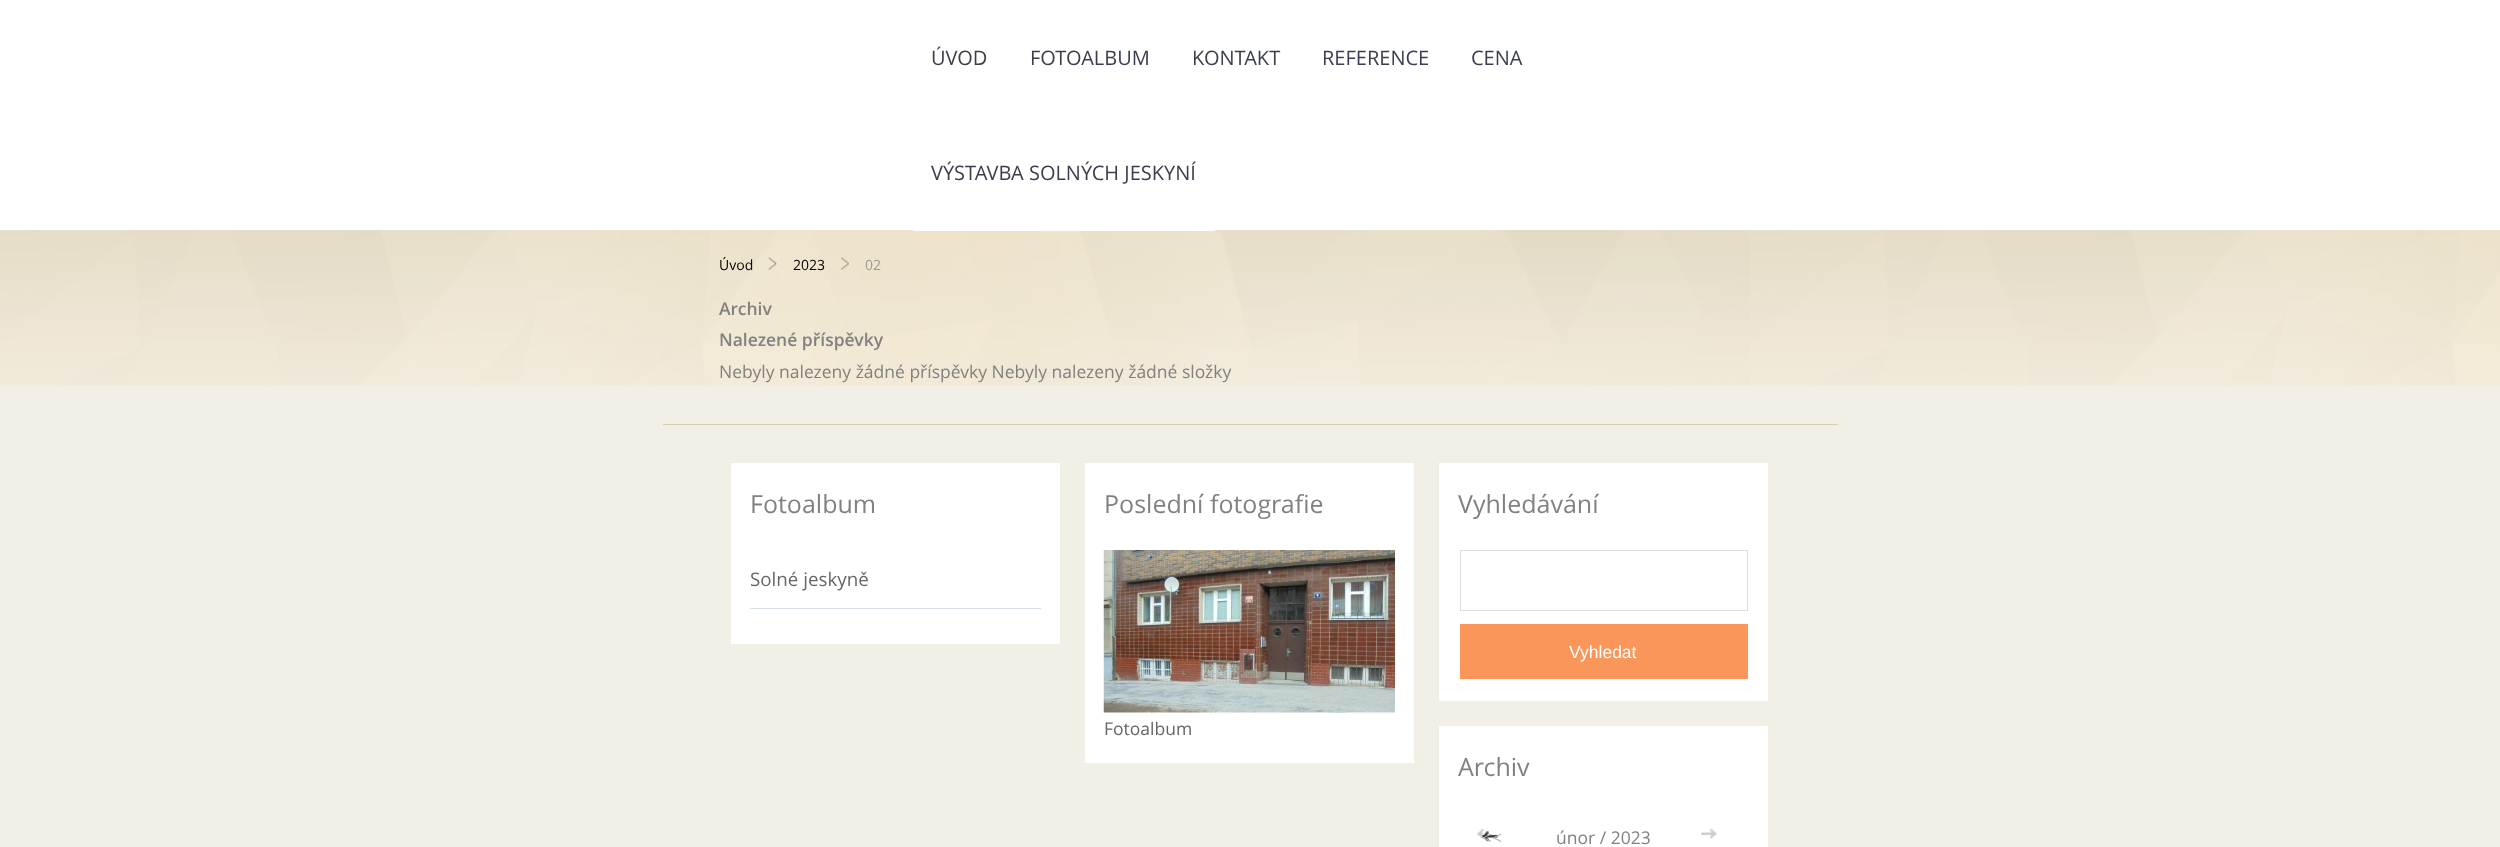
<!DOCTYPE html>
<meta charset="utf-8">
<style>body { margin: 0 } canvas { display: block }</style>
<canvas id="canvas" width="2500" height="847"></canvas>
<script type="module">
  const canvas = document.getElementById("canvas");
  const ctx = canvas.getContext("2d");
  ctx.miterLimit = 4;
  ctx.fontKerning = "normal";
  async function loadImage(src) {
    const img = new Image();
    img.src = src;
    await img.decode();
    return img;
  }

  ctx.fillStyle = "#f2efe6";
  ctx.fillRect(0, 0, 2500, 847);
  ctx.fillStyle = "#ffffff";
  ctx.fillRect(0, 0, 2500, 230);
  ctx.font = "20px Open Sans";
  ctx.fillStyle = "#3b3e4f";
  ctx.fillText("ÚVOD", 931, 65);
  ctx.fillText("FOTOALBUM", 1030, 65);
  ctx.fillText("KONTAKT", 1192, 65);
  ctx.fillText("REFERENCE", 1322, 65);
  ctx.fillText("CENA", 1471, 65);
  ctx.drawImage(await loadImage("img1.png"), 0, 230, 2500, 156);
  ctx.fillStyle = "#ffffff";
  ctx.fillRect(913, 230, 302, 1);
  ctx.fillStyle = "#3b3e4f";
  ctx.fillText("VÝSTAVBA SOLNÝCH JESKYNÍ", 931, 180);
  ctx.font = "14px Open Sans";
  ctx.fillStyle = "#000000";
  ctx.fillText("Úvod", 719, 270);
  ctx.drawImage(await loadImage("img2.png"), 768, 257, 9, 13);
  ctx.fillText("2023", 793, 270);
  ctx.drawImage(await loadImage("img3.png"), 841, 257, 8, 13);
  ctx.fillStyle = "#999999";
  ctx.fillText("02", 865, 270);
  ctx.font = "600 17.5px Open Sans";
  ctx.fillStyle = "#818181";
  ctx.fillText("Archiv", 719, 315);
  ctx.fillText("Nalezené příspěvky", 719, 346);
  ctx.font = "17.5px Open Sans";
  ctx.fillText("Nebyly nalezeny žádné příspěvky Nebyly nalezeny žádné složky", 719, 378);
  ctx.fillStyle = "#d6ccae";
  ctx.fillRect(663, 424, 1175, 1);
  ctx.fillStyle = "#ffffff";
  ctx.fillRect(731, 463, 329, 181);
  ctx.font = "25px Open Sans";
  ctx.fillStyle = "#818181";
  ctx.fillText("Fotoalbum", 750, 513);
  ctx.fillStyle = "#d6dde3";
  ctx.fillRect(750, 608, 291, 1);
  ctx.font = "18.75px Open Sans";
  ctx.fillStyle = "#666666";
  ctx.fillText("Solné jeskyně", 750, 586);
  ctx.fillStyle = "#ffffff";
  ctx.fillRect(1085, 463, 329, 300);
  ctx.font = "25px Open Sans";
  ctx.fillStyle = "#818181";
  ctx.fillText("Poslední fotografie", 1104, 513);
  ctx.drawImage(await loadImage("img4.png"), 1103, 550, 292, 163);
  ctx.font = "17.5px Open Sans";
  ctx.fillStyle = "#666666";
  ctx.fillText("Fotoalbum", 1104, 735);
  ctx.fillStyle = "#ffffff";
  ctx.fillRect(1439, 463, 329, 238);
  ctx.font = "25px Open Sans";
  ctx.fillStyle = "#818181";
  ctx.fillText("Vyhledávání", 1458, 513);
  ctx.strokeStyle = "#d6dde3";
  ctx.strokeRect(1460.5, 550.5, 287, 60);
  ctx.fillStyle = "#fa965a";
  ctx.fillRect(1460, 624, 288, 55);
  ctx.font = "17.5px Liberation Sans";
  ctx.fillStyle = "#ffffff";
  ctx.fillText("Vyhledat", 1569, 658);
  ctx.fillRect(1439, 726, 329, 121);
  ctx.font = "25px Open Sans";
  ctx.fillStyle = "#818181";
  ctx.fillText("Archiv", 1458, 776);
  ctx.drawImage(await loadImage("img5.png"), 1477, 828, 16, 11);
  ctx.drawImage(await loadImage("img6.png"), 1482, 831, 16, 11);
  ctx.font = "17.5px Open Sans";
  ctx.fillStyle = "#b5b5b5";
  ctx.fillText("<<", 1482, 844);
  ctx.fillStyle = "#818181";
  ctx.fillText("únor / 2023", 1556, 844);
  ctx.drawImage(await loadImage("img7.png"), 1701, 828, 16, 11);
</script>
